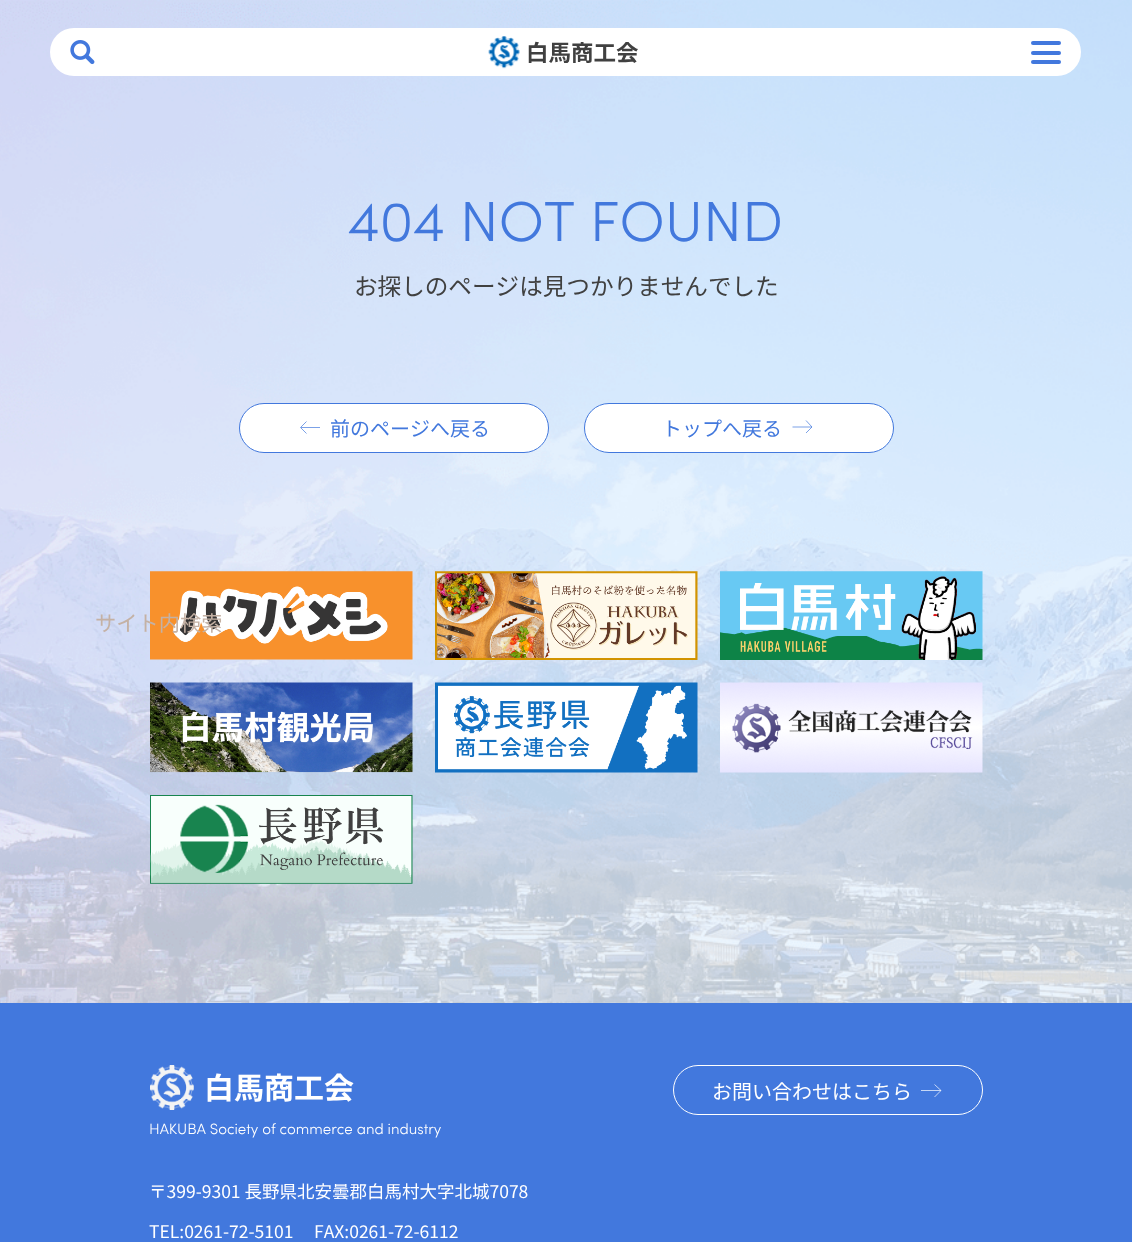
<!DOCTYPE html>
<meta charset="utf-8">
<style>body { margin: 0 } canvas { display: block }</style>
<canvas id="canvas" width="1132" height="1242"></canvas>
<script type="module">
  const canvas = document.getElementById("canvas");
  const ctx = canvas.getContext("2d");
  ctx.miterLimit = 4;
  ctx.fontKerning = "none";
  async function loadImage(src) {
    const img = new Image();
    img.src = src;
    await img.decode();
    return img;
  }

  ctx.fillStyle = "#ffffff";
  ctx.fillRect(0, 0, 1132, 1242);
  ctx.drawImage(await loadImage("img3.png"), 0, 0, 1132, 1003);
  ctx.beginPath();
  ctx.roundRect(50, 28, 1031, 48, 24);
  ctx.fill();
  ctx.drawImage(await loadImage("img1.png"), 70, 40, 25, 25);
  ctx.drawImage(await loadImage("img2.png"), 488, 36, 32, 33);
  ctx.font = "bold 22.5px Noto Sans JP";
  ctx.fillStyle = "#404040";
  ctx.fillText("白馬商工会", 526, 61);
  ctx.fillStyle = "#4278dd";
  ctx.beginPath();
  ctx.roundRect(1031, 41, 30, 4, 2);
  ctx.fill();
  ctx.beginPath();
  ctx.roundRect(1031, 51, 30, 4, 2);
  ctx.fill();
  ctx.beginPath();
  ctx.roundRect(1031, 60, 30, 4, 2);
  ctx.fill();
  ctx.font = "300 56.5px Sofia";
  ctx.fillText("404 NOT FOUND", 348, 241);
  ctx.font = "23.6px Noto Sans JP";
  ctx.fillStyle = "#404040";
  ctx.fillText("お探しのページは見つかりませんでした", 354, 295);
  ctx.fillStyle = "#ffffff";
  ctx.beginPath();
  ctx.roundRect(239.5, 403.5, 309, 49, 24.5);
  ctx.fill();
  ctx.strokeStyle = "#4278dd";
  ctx.stroke();
  ctx.fillStyle = "#7ba1e7";
  ctx.fillRect(301, 427, 19, 1);
  ctx.beginPath();
  ctx.moveTo(306.5, 421.5);
  ctx.lineTo(300.5, 427.5);
  ctx.lineTo(306.5, 433.5);
  ctx.lineWidth = 0.7;
  ctx.stroke();
  ctx.font = "20px Noto Sans JP";
  ctx.fillStyle = "#4278dd";
  ctx.fillText("前のページへ戻る", 330, 436);
  ctx.fillStyle = "#ffffff";
  ctx.beginPath();
  ctx.roundRect(584.5, 403.5, 309, 49, 24.5);
  ctx.fill();
  ctx.lineWidth = 1;
  ctx.stroke();
  ctx.fillStyle = "#4278dd";
  ctx.fillText("トップへ戻る", 662, 436);
  ctx.beginPath();
  ctx.moveTo(792.5, 427);
  ctx.lineTo(812, 427);
  ctx.moveTo(806, 433);
  ctx.lineTo(812, 427);
  ctx.lineTo(806, 420.5);
  ctx.lineWidth = 0.7;
  ctx.stroke();
  ctx.drawImage(await loadImage("img4.png"), 150, 571, 263, 89);
  ctx.drawImage(await loadImage("img5.png"), 435, 571, 263, 89);
  ctx.drawImage(await loadImage("img6.png"), 720, 571, 263, 89);
  ctx.drawImage(await loadImage("img7.png"), 150, 682, 263, 91);
  ctx.drawImage(await loadImage("img8.png"), 435, 682, 263, 91);
  ctx.drawImage(await loadImage("img9.png"), 720, 682, 263, 91);
  ctx.drawImage(await loadImage("img10.png"), 150, 795, 263, 89);
  ctx.font = "21.25px Noto Sans JP";
  ctx.fillStyle = "#c4b1a4";
  ctx.fillText("サイト内検索", 95, 631);
  ctx.fillStyle = "#4278dd";
  ctx.fillRect(0, 1003, 1132, 239);
  ctx.drawImage(await loadImage("img11.png"), 150, 1065, 44, 45);
  ctx.font = "bold 30px Noto Sans JP";
  ctx.fillStyle = "#ffffff";
  ctx.fillText("白馬商工会", 204, 1099);
  ctx.font = "300 15px Sofia";
  ctx.fillText("HAKUBA Society of commerce and industry", 149, 1134);
  ctx.font = "17.5px Noto Sans JP";
  ctx.fillText("〒399-9301 長野県北安曇郡白馬村大字北城7078", 149, 1198);
  ctx.fillText("TEL:0261-72-5101", 149, 1238);
  ctx.fillText("FAX:0261-72-6112", 314, 1238);
  ctx.beginPath();
  ctx.roundRect(673.5, 1065.5, 309, 49, 24.5);
  ctx.strokeStyle = "#ffffff";
  ctx.lineWidth = 1;
  ctx.stroke();
  ctx.font = "20px Noto Sans JP";
  ctx.fillText("お問い合わせはこちら", 712, 1099);
  ctx.fillStyle = "#c6d7f5";
  ctx.fillRect(921, 1090, 20, 1);
  ctx.beginPath();
  ctx.moveTo(934.5, 1097);
  ctx.lineTo(941, 1090.5);
  ctx.lineTo(934.5, 1084.5);
  ctx.lineWidth = 0.7;
  ctx.stroke();
</script>
